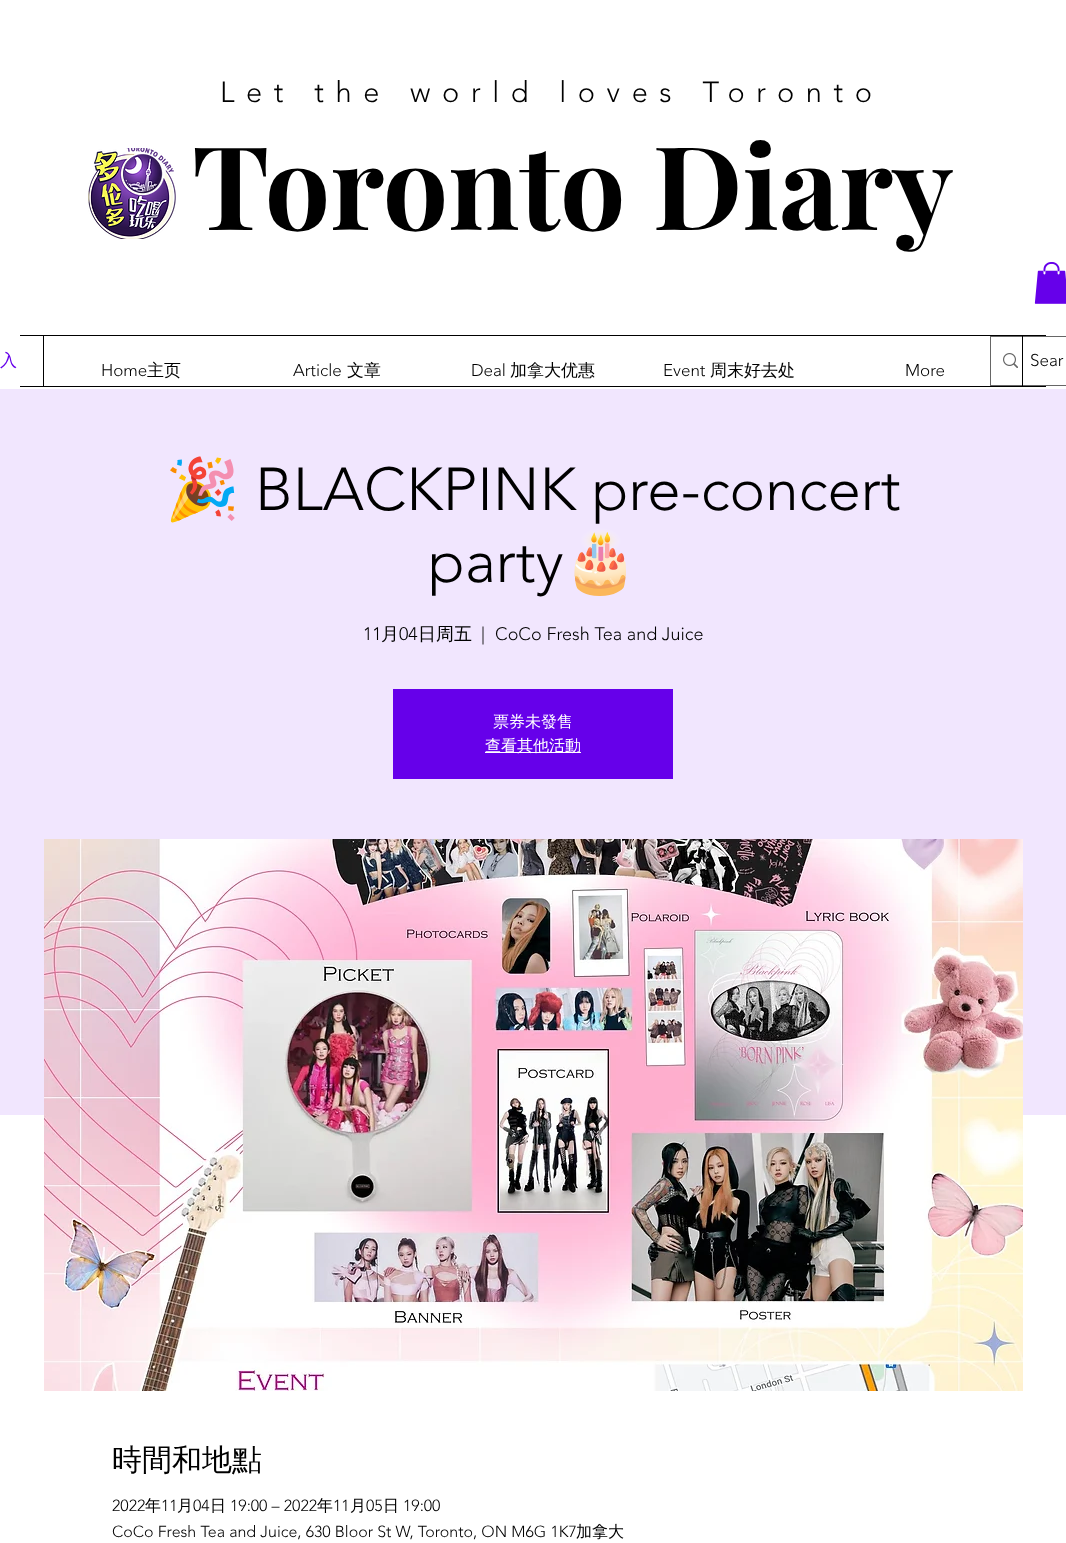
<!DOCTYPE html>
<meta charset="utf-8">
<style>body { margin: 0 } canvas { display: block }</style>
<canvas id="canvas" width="1066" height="1543"></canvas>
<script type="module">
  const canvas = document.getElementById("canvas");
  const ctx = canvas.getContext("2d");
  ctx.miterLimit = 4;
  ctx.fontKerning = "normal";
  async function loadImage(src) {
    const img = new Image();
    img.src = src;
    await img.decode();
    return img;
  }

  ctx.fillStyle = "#ffffff";
  ctx.fillRect(0, 0, 1066, 1543);
  ctx.letterSpacing = "11.6px";
  ctx.font = "300 29px 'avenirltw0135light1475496'";
  ctx.fillStyle = "#000000";
  ctx.fillText("Let the world loves Toronto", 220, 102);
  ctx.drawImage(await loadImage("img1.png"), 88, 148, 88, 91);
  ctx.letterSpacing = "0px";
  ctx.font = "bold 116px Playfair Display";
  ctx.fillText("Toronto Diary", 192, 230);
  ctx.drawImage(await loadImage("img2.png"), 1034, 262, 32, 42);
  ctx.fillRect(20, 335, 1026, 1);
  ctx.font = "500 17px WenQuanYi Zen Hei";
  ctx.fillStyle = "#6600ea";
  ctx.fillText("入", 0, 366);
  ctx.fillStyle = "#000000";
  ctx.fillRect(43, 336, 1, 50);
  ctx.font = "300 17px 'avenirltw0135light1475496'";
  ctx.fillText("Home", 101, 376);
  ctx.font = "500 17px WenQuanYi Zen Hei";
  ctx.fillText("主页", 147, 376);
  ctx.font = "300 17px 'avenirltw0135light1475496'";
  ctx.fillText("Article", 293, 376);
  ctx.font = "500 17px WenQuanYi Zen Hei";
  ctx.fillText("文章", 347, 376);
  ctx.font = "300 17px 'avenirltw0135light1475496'";
  ctx.fillText("Deal", 471, 376);
  ctx.font = "500 17px WenQuanYi Zen Hei";
  ctx.fillText("加拿大优惠", 510, 376);
  ctx.font = "300 17px 'avenirltw0135light1475496'";
  ctx.fillText("Event", 663, 376);
  ctx.font = "500 17px WenQuanYi Zen Hei";
  ctx.fillText("周末好去处", 710, 376);
  ctx.font = "300 17px 'avenirltw0135light1475496'";
  ctx.fillText("More", 905, 376);
  ctx.strokeStyle = "#666666";
  ctx.strokeRect(990.5, 336.5, 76, 49);
  ctx.fillRect(1022, 336, 1, 50);
  ctx.drawImage(await loadImage("img3.png"), 1003, 353, 15, 15);
  ctx.fillText("Sear", 1030, 366);
  ctx.fillRect(20, 386, 1026, 1);
  ctx.fillStyle = "#f1e6fe";
  ctx.fillRect(0, 389, 1066, 726);
  ctx.font = "60px Noto Color Emoji";
  ctx.fillStyle = "#000000";
  ctx.fillText("🎉", 165, 510);
  ctx.font = "300 60px 'avenirltw0135light1475496'";
  ctx.fillText("BLACKPINK pre-concert", 255, 510);
  ctx.fillText("party", 428, 582);
  ctx.font = "60px Noto Color Emoji";
  ctx.fillText("🎂", 563, 582);
  ctx.font = "300 18px 'avenirltw0135light1475496'";
  ctx.fillText("11", 363, 640);
  ctx.font = "500 18px WenQuanYi Zen Hei";
  ctx.fillText("月", 381, 640);
  ctx.font = "300 18px 'avenirltw0135light1475496'";
  ctx.fillText("04", 399, 640);
  ctx.font = "500 18px WenQuanYi Zen Hei";
  ctx.fillText("日周五", 418, 640);
  ctx.font = "300 18px 'avenirltw0135light1475496'";
  ctx.fillText("|", 481, 640);
  ctx.fillText("CoCo Fresh Tea and Juice", 495, 640);
  ctx.fillStyle = "#6600ea";
  ctx.fillRect(393, 689, 280, 90);
  ctx.font = "500 16px WenQuanYi Zen Hei";
  ctx.fillStyle = "#ffffff";
  ctx.fillText("票券未發售", 493, 727);
  ctx.fillRect(485, 752, 96, 1);
  ctx.fillText("查看其他活動", 485, 751);
  ctx.drawImage(await loadImage("img4.png"), 44, 839, 979, 552);
  ctx.font = "500 30px WenQuanYi Zen Hei";
  ctx.fillStyle = "#000000";
  ctx.fillText("時間和地點", 112, 1470);
  ctx.font = "300 16px 'avenirltw0135light1475496'";
  ctx.fillText("2022", 112, 1511);
  ctx.font = "500 16px WenQuanYi Zen Hei";
  ctx.fillText("年", 145, 1511);
  ctx.font = "300 16px 'avenirltw0135light1475496'";
  ctx.fillText("11", 161, 1511);
  ctx.font = "500 16px WenQuanYi Zen Hei";
  ctx.fillText("月", 177, 1511);
  ctx.font = "300 16px 'avenirltw0135light1475496'";
  ctx.fillText("04", 193, 1511);
  ctx.font = "500 16px WenQuanYi Zen Hei";
  ctx.fillText("日", 210, 1511);
  ctx.font = "300 16px 'avenirltw0135light1475496'";
  ctx.fillText("19:00 – 2022", 230, 1511);
  ctx.font = "500 16px WenQuanYi Zen Hei";
  ctx.fillText("年", 317, 1511);
  ctx.font = "300 16px 'avenirltw0135light1475496'";
  ctx.fillText("11", 333, 1511);
  ctx.font = "500 16px WenQuanYi Zen Hei";
  ctx.fillText("月", 350, 1511);
  ctx.font = "300 16px 'avenirltw0135light1475496'";
  ctx.fillText("05", 366, 1511);
  ctx.font = "500 16px WenQuanYi Zen Hei";
  ctx.fillText("日", 383, 1511);
  ctx.font = "300 16px 'avenirltw0135light1475496'";
  ctx.fillText("19:00", 403, 1511);
  ctx.fillText("CoCo Fresh Tea and Juice, 630 Bloor St W, Toronto, ON M6G 1K7", 112, 1537);
  ctx.font = "500 16px WenQuanYi Zen Hei";
  ctx.fillText("加拿大", 576, 1537);
</script>
